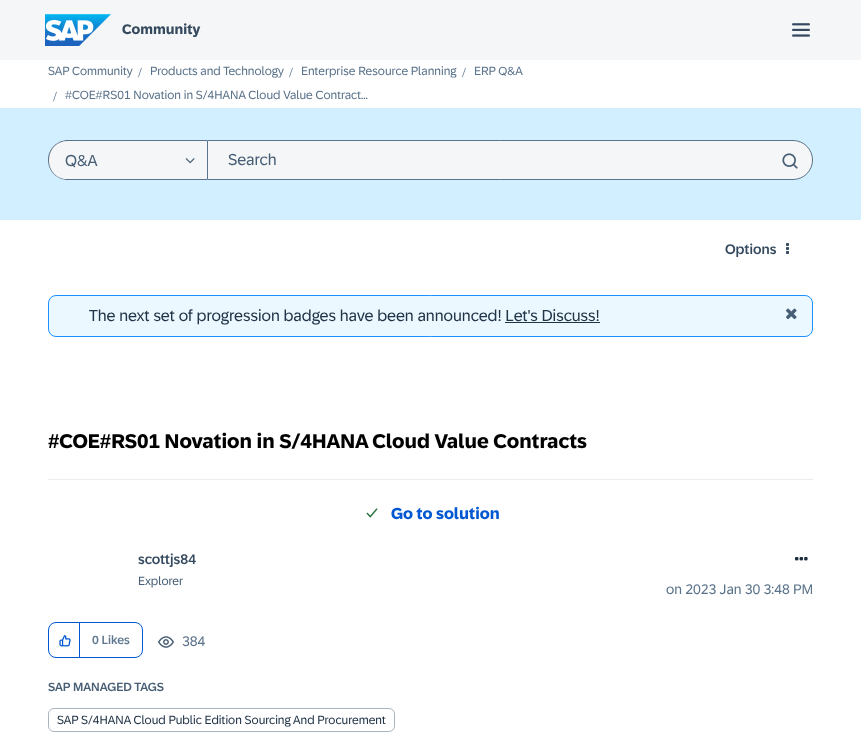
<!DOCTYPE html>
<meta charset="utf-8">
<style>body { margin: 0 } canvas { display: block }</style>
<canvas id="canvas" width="861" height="732"></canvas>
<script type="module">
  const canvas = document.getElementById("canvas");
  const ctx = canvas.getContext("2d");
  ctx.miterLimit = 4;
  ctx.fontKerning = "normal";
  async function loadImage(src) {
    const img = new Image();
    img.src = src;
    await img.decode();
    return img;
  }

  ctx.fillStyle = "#ffffff";
  ctx.fillRect(0, 0, 861, 732);
  ctx.fillStyle = "#f5f6f7";
  ctx.fillRect(0, 0, 861, 60);
  ctx.drawImage(await loadImage("img1.png"), 45, 14, 66, 32);
  ctx.font = "bold 14px '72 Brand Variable'";
  ctx.fillStyle = "#354a5f";
  ctx.fillText("Community", 122, 34);
  ctx.drawImage(await loadImage("img2.png"), 792, 23, 18, 14);
  ctx.font = "12px '72 Brand Variable'";
  ctx.fillStyle = "#5b738b";
  ctx.fillText("SAP Community", 48, 75);
  ctx.font = "14px Liberation Serif";
  ctx.fillText("/", 138, 77);
  ctx.font = "12px '72 Brand Variable'";
  ctx.fillText("Products and Technology", 150, 75);
  ctx.font = "14px Liberation Serif";
  ctx.fillText("/", 289, 77);
  ctx.font = "12px '72 Brand Variable'";
  ctx.fillText("Enterprise Resource Planning", 301, 75);
  ctx.font = "14px Liberation Serif";
  ctx.fillText("/", 462, 77);
  ctx.font = "12px '72 Brand Variable'";
  ctx.fillText("ERP Q&A", 474, 75);
  ctx.font = "14px Liberation Serif";
  ctx.fillText("/", 53, 101);
  ctx.font = "12px '72 Brand Variable'";
  ctx.fillText("#COE#RS01 Novation in S/4HANA Cloud Value Contract...", 65, 99);
  ctx.fillStyle = "#d1efff";
  ctx.fillRect(0, 108, 861, 112);
  ctx.fillStyle = "#f5f6f7";
  ctx.beginPath();
  ctx.roundRect(48, 140, 159, 40, [20, 0, 0, 20]);
  ctx.fill();
  ctx.fillStyle = "#5b738b";
  ctx.beginPath();
  ctx.moveTo(68, 140);
  ctx.lineTo(207, 140);
  ctx.lineTo(207, 180);
  ctx.lineTo(68, 180);
  ctx.bezierCurveTo(57, 180, 48, 171, 48, 160);
  ctx.bezierCurveTo(48, 149, 57, 140, 68, 140);
  ctx.closePath();
  ctx.moveTo(68, 141);
  ctx.lineTo(207, 141);
  ctx.lineTo(207, 179);
  ctx.lineTo(64, 179);
  ctx.bezierCurveTo(42, 174, 45, 141, 68, 141);
  ctx.closePath();
  ctx.fill("evenodd");
  ctx.font = "16px '72 Brand Variable'";
  ctx.fillStyle = "#475e75";
  ctx.fillText("Q&A", 65, 166);
  ctx.drawImage(await loadImage("img3.png"), 185, 158, 10, 6);
  ctx.fillStyle = "#f5f6f7";
  ctx.beginPath();
  ctx.roundRect(207.5, 140.5, 605, 39, [0, 19.5, 19.5, 0]);
  ctx.fill();
  ctx.strokeStyle = "#5b738b";
  ctx.stroke();
  ctx.fillStyle = "#475e75";
  ctx.fillText("Search", 228, 165);
  ctx.drawImage(await loadImage("img4.png"), 782, 153, 16, 16);
  ctx.font = "500 14px '72 Brand Variable'";
  ctx.fillStyle = "#354a5f";
  ctx.fillText("Options", 725, 254);
  ctx.drawImage(await loadImage("img5.png"), 786, 243, 3, 11);
  ctx.fillStyle = "#ebf8ff";
  ctx.beginPath();
  ctx.roundRect(48.5, 295.5, 764, 41, 7.5);
  ctx.fill();
  ctx.strokeStyle = "#1b90ff";
  ctx.stroke();
  ctx.font = "16px '72 Brand Variable'";
  ctx.fillStyle = "#223548";
  ctx.fillText("The next set of progression badges have been announced! Let's Discuss!", 89, 321);
  ctx.fillRect(505, 322, 95, 1);
  ctx.drawImage(await loadImage("img6.png"), 786, 308, 11, 12);
  ctx.fillStyle = "#eaecee";
  ctx.fillRect(48, 479, 765, 1);
  ctx.font = "bold 20px '72 Brand Variable'";
  ctx.fillStyle = "#000000";
  ctx.fillText("#COE#RS01 Novation in S/4HANA Cloud Value Contracts", 48, 448);
  ctx.drawImage(await loadImage("img7.png"), 366, 508, 12, 10);
  ctx.font = "bold 16px '72 Brand Variable'";
  ctx.fillStyle = "#0057d2";
  ctx.fillText("Go to solution", 391, 519);
  ctx.font = "500 14px '72 Brand Variable'";
  ctx.fillStyle = "#354a5f";
  ctx.fillText("scottjs84", 138, 564);
  ctx.font = "12px '72 Brand Variable'";
  ctx.fillStyle = "#475e75";
  ctx.fillText("Explorer", 138, 585);
  ctx.drawImage(await loadImage("img8.png"), 795, 557, 13, 4);
  ctx.font = "14px '72 Brand Variable'";
  ctx.fillStyle = "#5b738b";
  ctx.fillText("on 2023 Jan 30 3:48 PM", 666, 594);
  ctx.beginPath();
  ctx.roundRect(48.5, 622.5, 94, 35, 7.5);
  ctx.strokeStyle = "#0057d2";
  ctx.stroke();
  ctx.fillStyle = "#0057d2";
  ctx.fillRect(79, 623, 1, 35);
  ctx.drawImage(await loadImage("img9.png"), 59, 635, 12, 12);
  ctx.font = "500 12px '72 Brand Variable'";
  ctx.fillStyle = "#617990";
  ctx.fillText("0 Likes", 92, 644);
  ctx.drawImage(await loadImage("img10.png"), 158, 636, 16, 12);
  ctx.font = "14px '72 Brand Variable'";
  ctx.fillStyle = "#5b738b";
  ctx.fillText("384", 182, 646);
  ctx.font = "500 12px '72 Brand Variable'";
  ctx.fillStyle = "#475e75";
  ctx.fillText("SAP MANAGED TAGS", 48, 691);
  ctx.beginPath();
  ctx.roundRect(48.5, 708.5, 346, 23, 5.5);
  ctx.strokeStyle = "#a9b4be";
  ctx.stroke();
  ctx.font = "12px '72 Brand Variable'";
  ctx.fillStyle = "#223548";
  ctx.fillText("SAP S/4HANA Cloud Public Edition Sourcing And Procurement", 57, 724);
</script>
